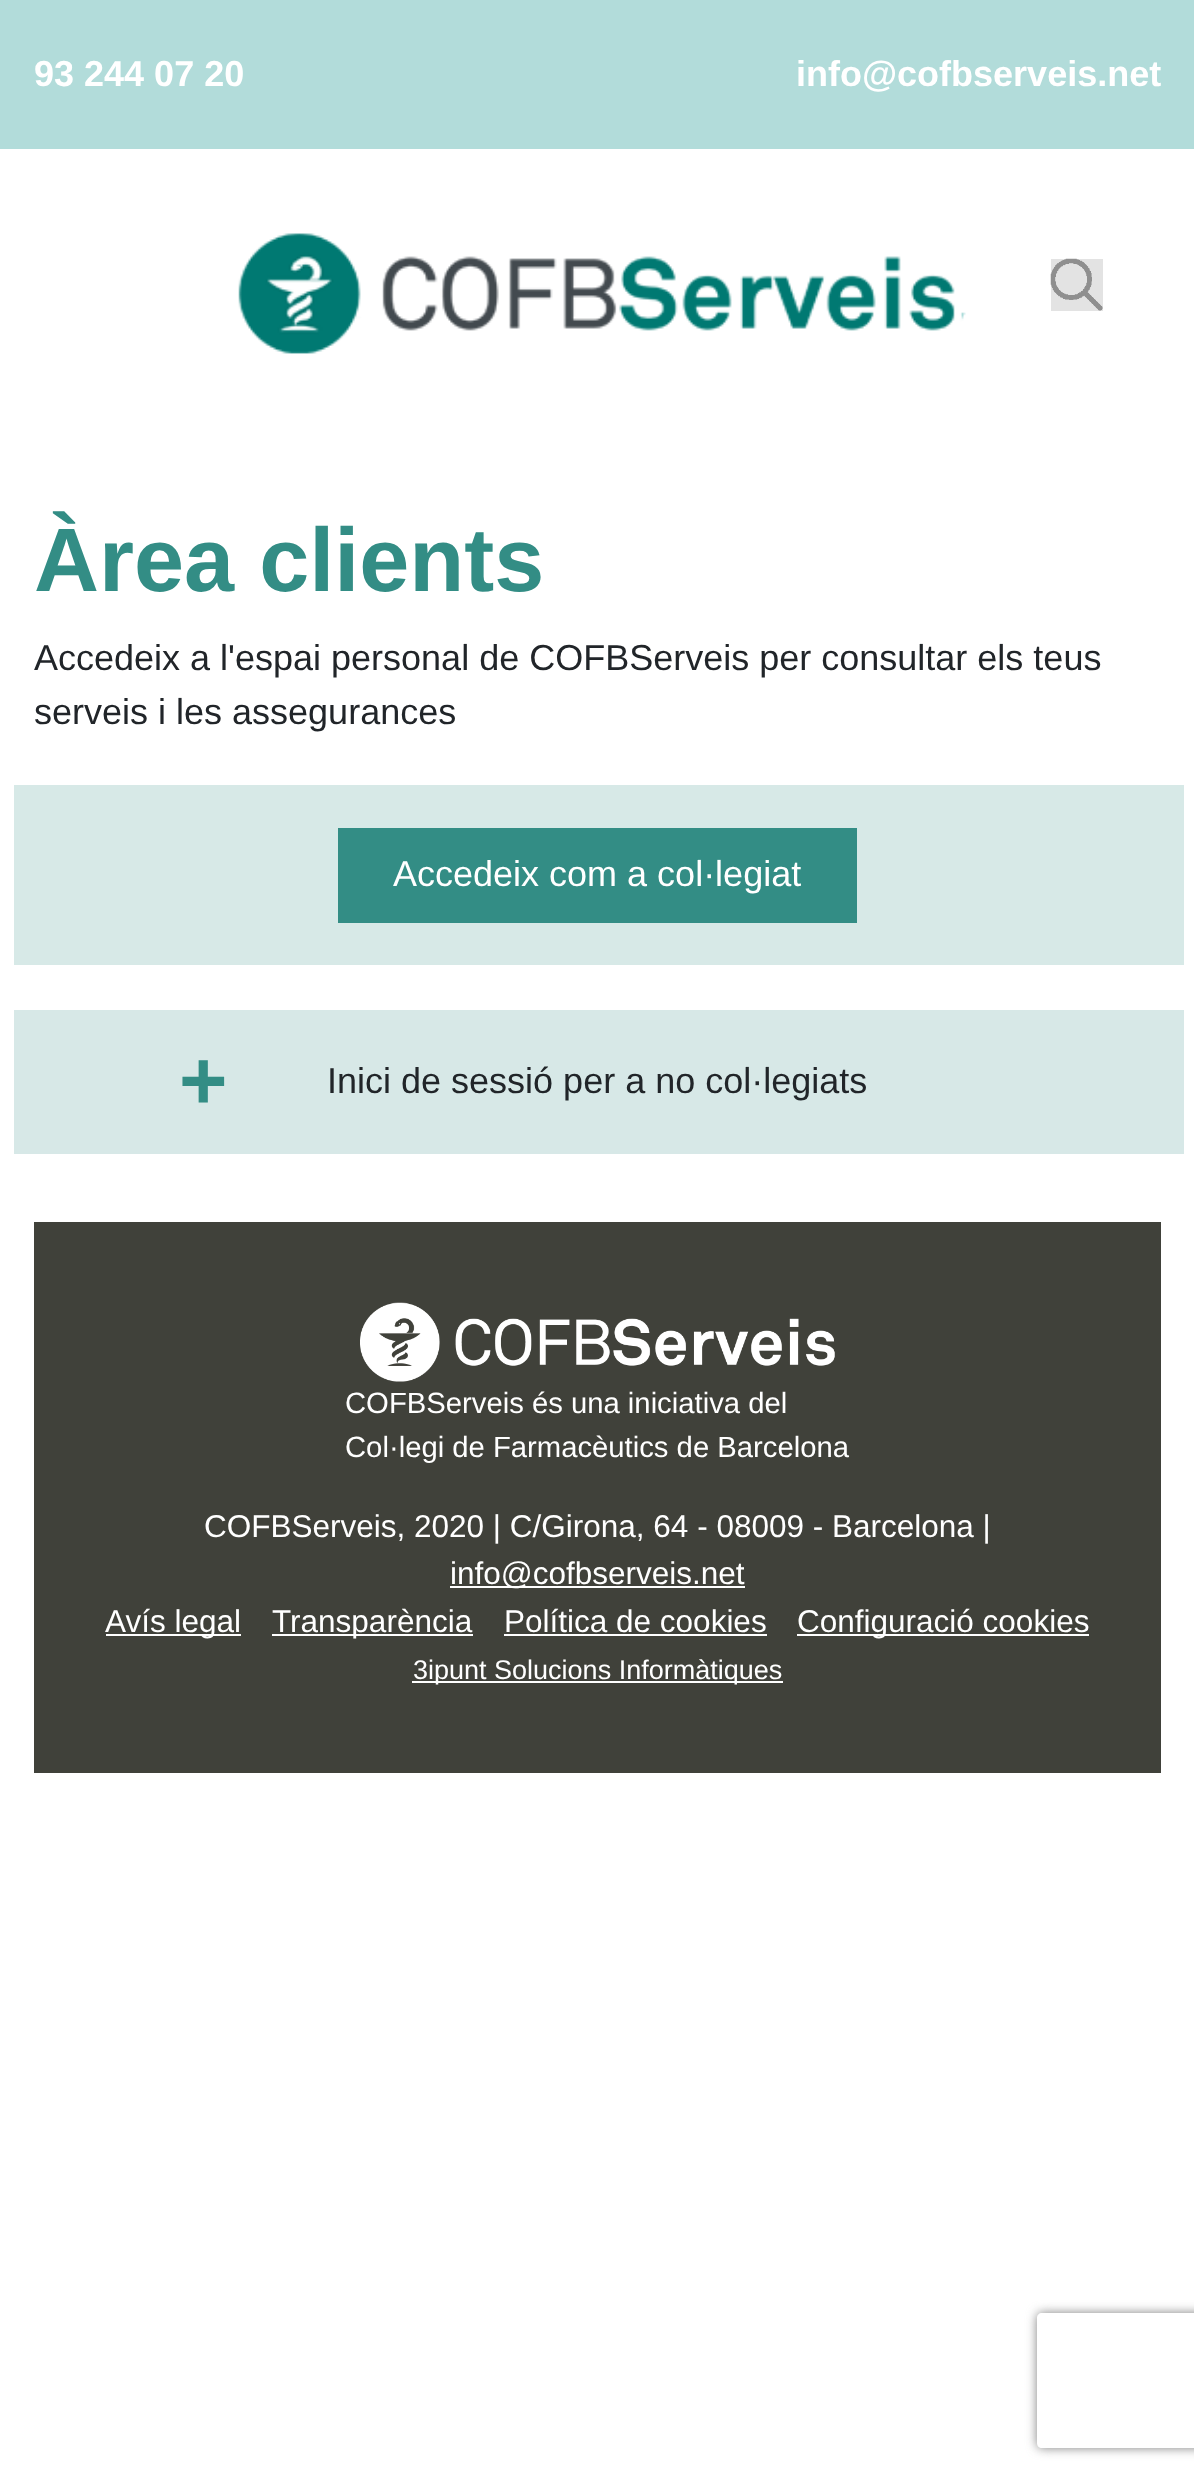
<!DOCTYPE html>
<meta charset="utf-8">
<style>body { margin: 0 } canvas { display: block }</style>
<canvas id="canvas" width="1194" height="2478"></canvas>
<script type="module">
  const canvas = document.getElementById("canvas");
  const ctx = canvas.getContext("2d");
  ctx.miterLimit = 4;
  ctx.fontKerning = "normal";
  async function loadImage(src) {
    const img = new Image();
    img.src = src;
    await img.decode();
    return img;
  }

  ctx.fillStyle = "#ffffff";
  ctx.fillRect(0, 0, 1194, 2478);
  ctx.fillStyle = "#b2dcda";
  ctx.fillRect(0, 0, 1194, 149);
  ctx.font = "bold 36px Liberation Sans";
  ctx.fillStyle = "#ffffff";
  ctx.fillText("93 244 07 20", 34, 86);
  ctx.fillText("info@cofbserveis.net", 796, 86);
  ctx.drawImage(await loadImage("img1.png"), 238, 233, 728, 121);
  ctx.fillStyle = "#e3e3e3";
  ctx.fillRect(1051, 259, 52, 52);
  ctx.drawImage(await loadImage("img2.png"), 1050, 258, 53, 53);
  ctx.font = "bold 90px Liberation Sans";
  ctx.fillStyle = "#338d85";
  ctx.fillText("Àrea clients", 34, 591);
  ctx.font = "36px Liberation Sans";
  ctx.fillStyle = "#212529";
  ctx.fillText("Accedeix a l'espai personal de COFBServeis per consultar els teus", 34, 670);
  ctx.fillText("serveis i les assegurances", 34, 724);
  ctx.fillStyle = "#d7e9e7";
  ctx.fillRect(14, 785, 1170, 180);
  ctx.fillStyle = "#338d85";
  ctx.fillRect(338, 828, 519, 95);
  ctx.fillStyle = "#ffffff";
  ctx.fillText("Accedeix com a col·legiat", 393, 886);
  ctx.fillStyle = "#d7e8e7";
  ctx.fillRect(14, 1010, 1170, 144);
  ctx.font = "bold 83px Liberation Sans";
  ctx.fillStyle = "#338d85";
  ctx.fillText("+", 179, 1109);
  ctx.font = "36px Liberation Sans";
  ctx.fillStyle = "#212529";
  ctx.fillText("Inici de sessió per a no col·legiats", 327, 1093);
  ctx.fillStyle = "#40413a";
  ctx.fillRect(34, 1222, 1127, 551);
  ctx.drawImage(await loadImage("img3.png"), 360, 1302, 475, 80);
  ctx.font = "29.25px Liberation Sans";
  ctx.fillStyle = "#ffffff";
  ctx.fillText("COFBServeis és una iniciativa del", 345, 1413);
  ctx.fillText("Col·legi de Farmacèutics de Barcelona", 345, 1457);
  ctx.font = "31.5px Liberation Sans";
  ctx.fillText("COFBServeis, 2020 | C/Girona, 64 - 08009 - Barcelona |", 204, 1537);
  ctx.fillRect(450, 1586, 295, 2);
  ctx.fillText("info@cofbserveis.net", 450, 1584);
  ctx.fillRect(106, 1634, 135, 2);
  ctx.fillText("Avís legal", 105, 1632);
  ctx.fillRect(272, 1634, 201, 2);
  ctx.fillText("Transparència", 272, 1632);
  ctx.fillText("Política de cookies", 504, 1632);
  ctx.fillRect(504, 1634, 263, 2);
  ctx.fillRect(797, 1634, 292, 2);
  ctx.fillText("Configuració cookies", 797, 1632);
  ctx.fillRect(412, 1681, 371, 2);
  ctx.font = "27px Liberation Sans";
  ctx.fillText("3ipunt Solucions Informàtiques", 413, 1679);
  ctx.save();
  ctx.beginPath();
  ctx.moveTo(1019, 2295);
  ctx.lineTo(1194, 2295);
  ctx.lineTo(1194, 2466);
  ctx.lineTo(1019, 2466);
  ctx.closePath();
  ctx.moveTo(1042, 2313);
  ctx.lineTo(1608, 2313);
  ctx.bezierCurveTo(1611, 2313, 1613, 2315, 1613, 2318);
  ctx.lineTo(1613, 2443);
  ctx.bezierCurveTo(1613, 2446, 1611, 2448, 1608, 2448);
  ctx.lineTo(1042, 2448);
  ctx.bezierCurveTo(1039, 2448, 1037, 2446, 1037, 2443);
  ctx.lineTo(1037, 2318);
  ctx.bezierCurveTo(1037, 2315, 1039, 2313, 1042, 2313);
  ctx.closePath();
  ctx.clip("evenodd");
  ctx.fillStyle = "#808080";
  ctx.filter = "blur(5.5px)";
  ctx.beginPath();
  ctx.roundRect(1037, 2313, 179, 135, 5);
  ctx.fill();
  ctx.filter = "none";
  ctx.restore();
</script>
